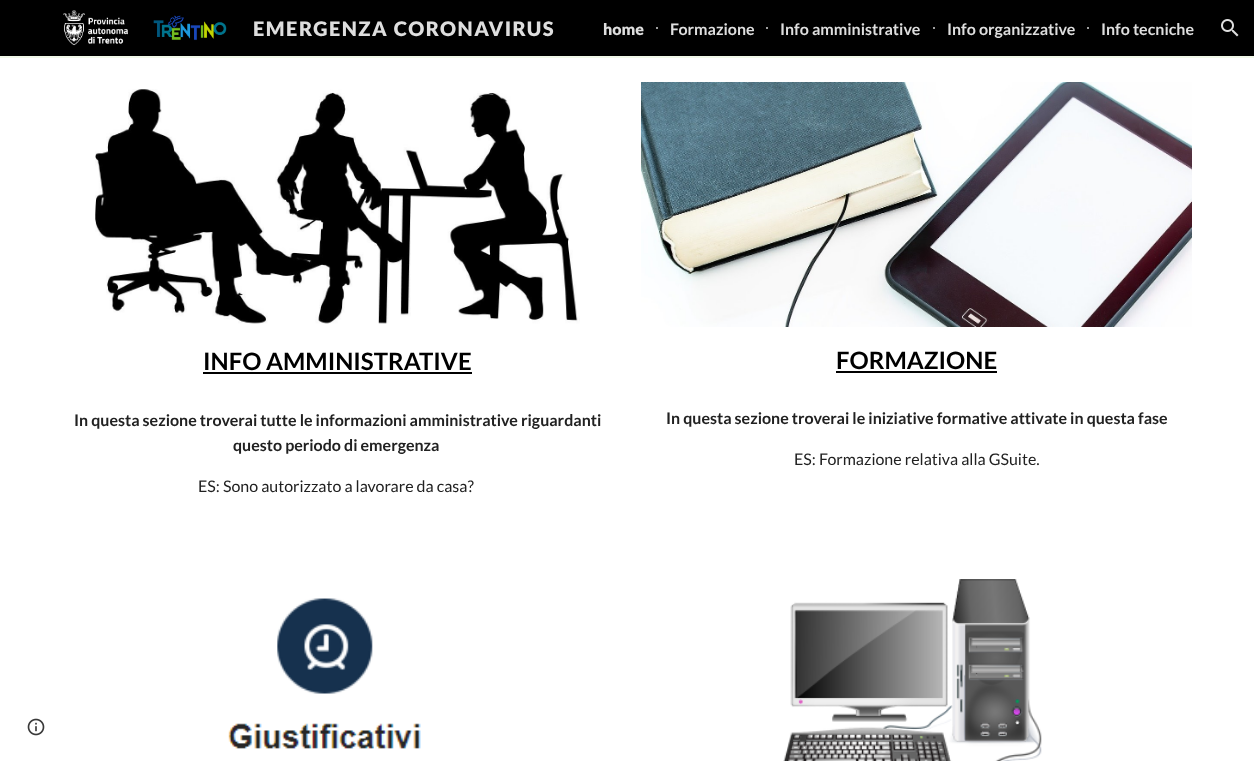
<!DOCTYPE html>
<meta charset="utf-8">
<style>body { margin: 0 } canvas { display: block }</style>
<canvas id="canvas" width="1254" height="761"></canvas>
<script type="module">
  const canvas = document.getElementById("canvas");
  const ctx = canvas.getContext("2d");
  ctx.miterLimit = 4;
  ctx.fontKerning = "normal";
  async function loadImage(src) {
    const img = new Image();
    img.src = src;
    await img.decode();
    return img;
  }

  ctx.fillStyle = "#ffffff";
  ctx.fillRect(0, 0, 1254, 761);
  ctx.fillStyle = "#000000";
  ctx.fillRect(0, 0, 1254, 56);
  ctx.drawImage(await loadImage("img1.png"), 63, 10, 164, 36);
  ctx.letterSpacing = "1.5px";
  ctx.font = "900 20px Lato";
  ctx.fillStyle = "#dedede";
  ctx.fillText("EMERGENZA CORONAVIRUS", 253, 36);
  ctx.letterSpacing = "0px";
  ctx.font = "900 16px Lato";
  ctx.fillText("home", 603, 35);
  ctx.fillStyle = "#9e9e9e";
  ctx.fillRect(656, 27, 2, 2);
  ctx.font = "bold 16px Lato";
  ctx.fillStyle = "#dedede";
  ctx.fillText("Formazione", 670, 35);
  ctx.fillStyle = "#9e9e9e";
  ctx.fillRect(766, 27, 2, 2);
  ctx.fillStyle = "#dedede";
  ctx.fillText("Info amministrative", 780, 35);
  ctx.fillStyle = "#9e9e9e";
  ctx.fillRect(933, 27, 2, 2);
  ctx.fillStyle = "#dedede";
  ctx.fillText("Info organizzative", 947, 35);
  ctx.fillStyle = "#9e9e9e";
  ctx.fillRect(1087, 27, 2, 2);
  ctx.fillStyle = "#dedede";
  ctx.fillText("Info tecniche", 1101, 35);
  ctx.drawImage(await loadImage("img2.png"), 1221, 19, 18, 18);
  ctx.fillStyle = "#f1f8e9";
  ctx.fillRect(0, 56, 1254, 2);
  ctx.drawImage(await loadImage("img3.png"), 95, 89, 485, 235);
  ctx.font = "bold 24px Lato";
  ctx.fillStyle = "#000000";
  ctx.fillText("INFO AMMINISTRATIVE", 203, 370);
  ctx.fillRect(203, 372, 269, 2);
  ctx.font = "bold 16px Lato";
  ctx.fillStyle = "#212121";
  ctx.fillText("In questa sezione troverai tutte le informazioni amministrative riguardanti", 74, 426);
  ctx.fillText("questo periodo di emergenza", 233, 451);
  ctx.font = "16px Lato";
  ctx.fillText("ES: Sono autorizzato a lavorare da casa?", 198, 492);
  ctx.drawImage(await loadImage("img4.png"), 641, 82, 551, 245);
  ctx.font = "bold 24px Lato";
  ctx.fillStyle = "#000000";
  ctx.fillText("FORMAZIONE", 836, 369);
  ctx.fillRect(836, 371, 161, 2);
  ctx.font = "bold 16px Lato";
  ctx.fillStyle = "#212121";
  ctx.fillText("In questa sezione troverai le iniziative formative attivate in questa fase", 666, 424);
  ctx.font = "16px Lato";
  ctx.fillText("ES: Formazione relativa alla GSuite.", 794, 465);
  ctx.drawImage(await loadImage("img5.png"), 228, 598, 193, 151);
  ctx.drawImage(await loadImage("img6.png"), 783, 579, 259, 182);
  ctx.drawImage(await loadImage("img7.png"), 27, 718, 18, 18);
</script>
